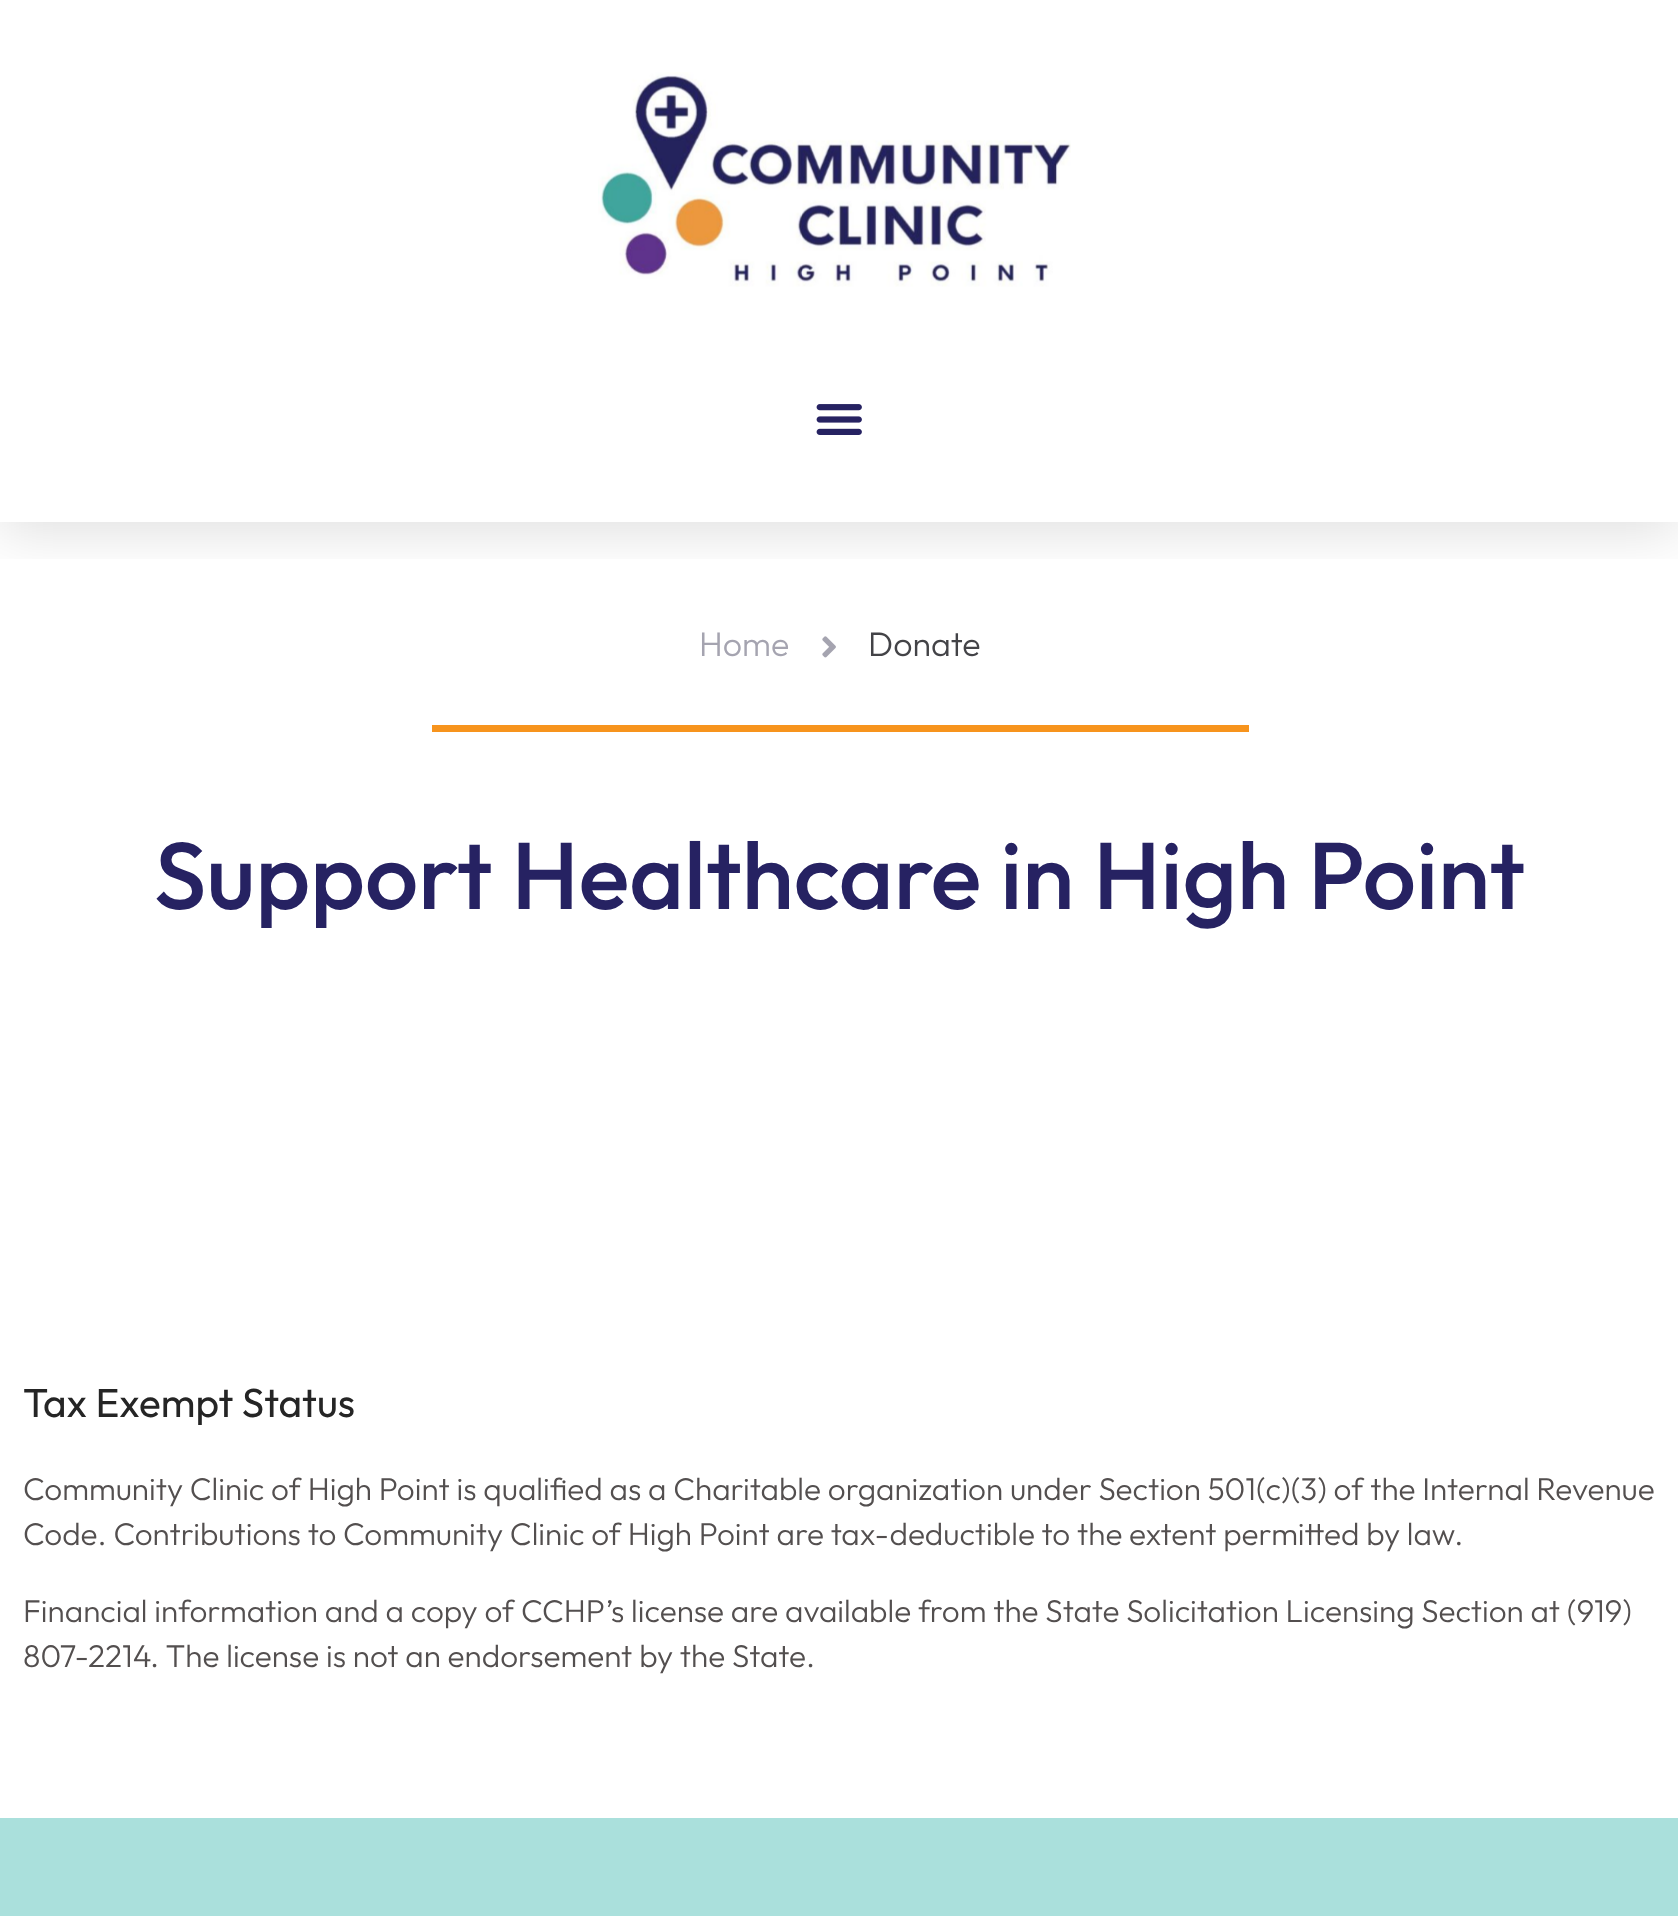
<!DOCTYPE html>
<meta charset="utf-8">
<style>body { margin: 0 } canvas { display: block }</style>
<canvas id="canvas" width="1678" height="1916"></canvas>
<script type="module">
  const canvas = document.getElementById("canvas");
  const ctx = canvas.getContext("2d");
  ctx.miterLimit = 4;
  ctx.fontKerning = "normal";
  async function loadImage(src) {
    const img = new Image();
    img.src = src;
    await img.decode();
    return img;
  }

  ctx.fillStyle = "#ffffff";
  ctx.fillRect(0, 0, 1678, 1916);
  ctx.save();
  ctx.beginPath();
  ctx.rect(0, 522, 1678, 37);
  ctx.clip();
  ctx.fillStyle = "rgba(0, 0, 0, 0.12)";
  ctx.filter = "blur(27px)";
  ctx.beginPath();
  ctx.rect(0, 11, 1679, 522);
  ctx.fill();
  ctx.filter = "none";
  ctx.restore();
  ctx.drawImage(await loadImage("img1.png"), 598, 72, 473, 215);
  ctx.drawImage(await loadImage("img2.png"), 816, 404, 46, 31);
  ctx.font = "300 34px Outfit";
  ctx.fillStyle = "#a5a4b0";
  ctx.fillText("Home", 699, 656);
  ctx.drawImage(await loadImage("img3.png"), 822, 636, 14, 22);
  ctx.fillStyle = "#434347";
  ctx.fillText("Donate", 868, 656);
  ctx.fillStyle = "#f7941d";
  ctx.fillRect(432, 725, 817, 7);
  ctx.font = "500 94.5px Outfit";
  ctx.fillStyle = "#262262";
  ctx.fillText("Support Healthcare in High Point", 154, 909);
  ctx.font = "40.5px Outfit";
  ctx.fillStyle = "#252525";
  ctx.fillText("Tax Exempt Status", 23, 1417);
  ctx.font = "300 31.5px Outfit";
  ctx.fillStyle = "#534f4f";
  ctx.fillText("Community Clinic of High Point is qualified as a Charitable organization under Section 501(c)(3) of the Internal Revenue", 23, 1500);
  ctx.fillText("Code. Contributions to Community Clinic of High Point are tax-deductible to the extent permitted by law.", 23, 1545);
  ctx.fillText("Financial information and a copy of CCHP’s license are available from the State Solicitation Licensing Section at (919)", 23, 1622);
  ctx.fillText("807-2214. The license is not an endorsement by the State.", 23, 1667);
  ctx.fillStyle = "#aae0dc";
  ctx.fillRect(0, 1818, 1678, 98);
</script>
